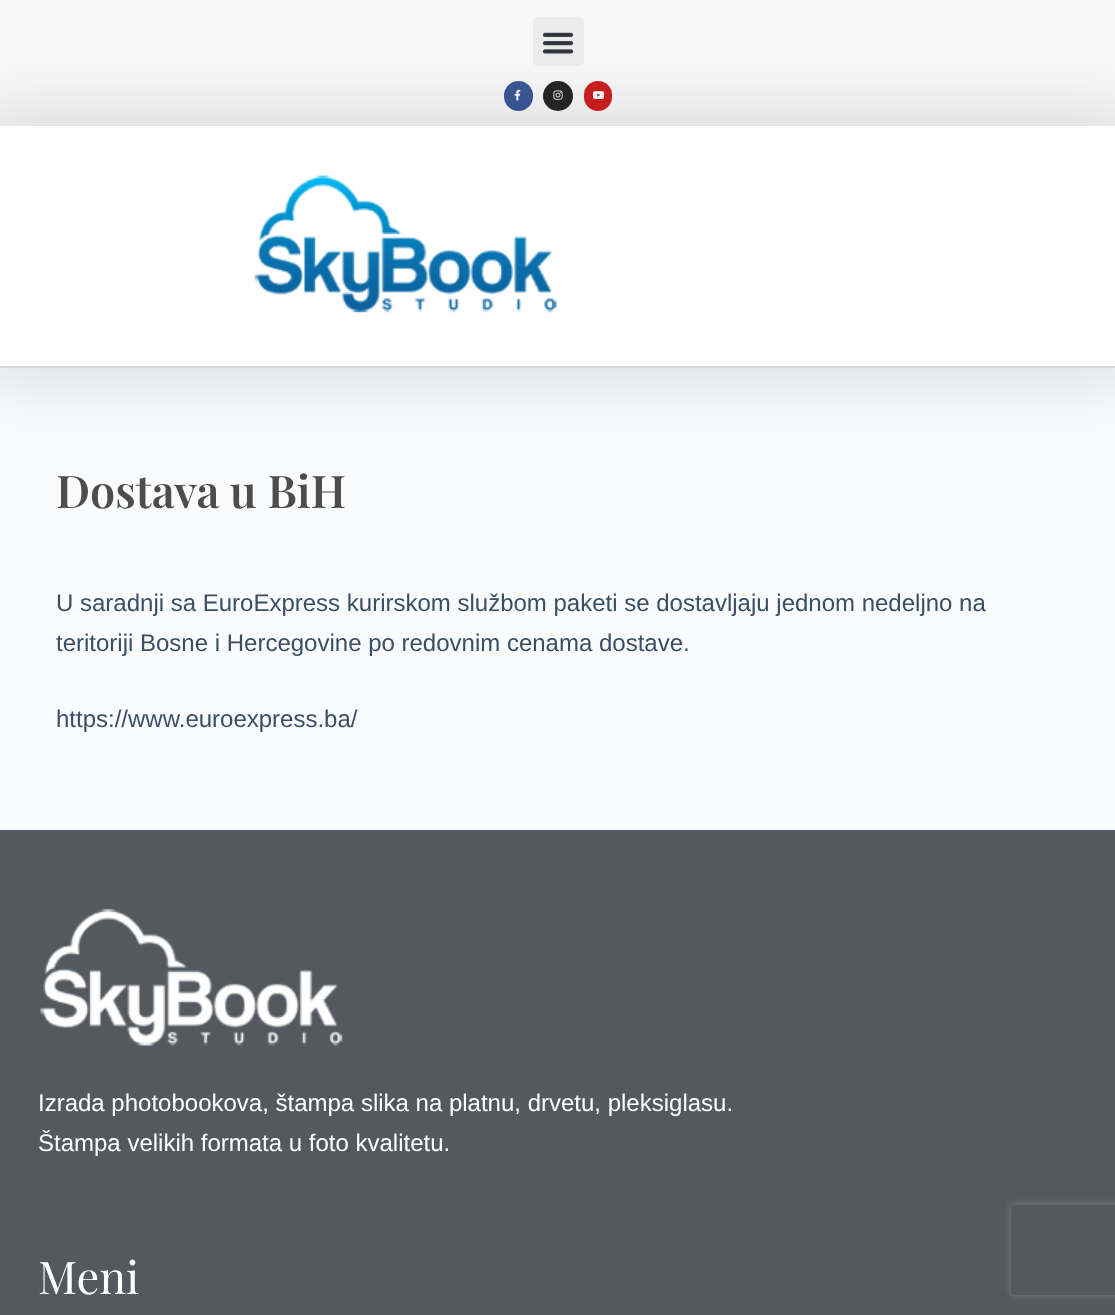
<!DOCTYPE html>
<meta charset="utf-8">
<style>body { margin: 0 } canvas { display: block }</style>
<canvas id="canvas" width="1115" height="1315"></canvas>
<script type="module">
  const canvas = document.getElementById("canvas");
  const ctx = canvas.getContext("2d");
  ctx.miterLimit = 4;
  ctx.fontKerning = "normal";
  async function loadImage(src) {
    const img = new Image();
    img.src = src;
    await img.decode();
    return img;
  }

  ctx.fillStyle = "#fafbfc";
  ctx.fillRect(0, 0, 1115, 1315);
  ctx.fillStyle = "#f8f8f8";
  ctx.fillRect(0, 0, 1115, 126);
  ctx.fillStyle = "#ececec";
  ctx.beginPath();
  ctx.roundRect(533, 17, 51, 49, 5);
  ctx.fill();
  ctx.drawImage(await loadImage("img1.png"), 542, 32, 32, 22);
  ctx.fillStyle = "#3b5998";
  ctx.beginPath();
  ctx.roundRect(504, 81, 29, 30, 14.5);
  ctx.fill();
  ctx.drawImage(await loadImage("img2.png"), 514, 89, 7, 12);
  ctx.fillStyle = "#262626";
  ctx.beginPath();
  ctx.arc(558, 96, 15, 0, Math.PI * 2);
  ctx.fill();
  ctx.drawImage(await loadImage("img3.png"), 553, 90, 10, 10);
  ctx.fillStyle = "#cd201f";
  ctx.beginPath();
  ctx.roundRect(584, 81, 28, 30, 14);
  ctx.fill();
  ctx.drawImage(await loadImage("img4.png"), 592, 91, 13, 8);
  ctx.fillStyle = "rgba(0, 0, 0, 0.1)";
  ctx.filter = "blur(32px)";
  ctx.beginPath();
  ctx.rect(-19, 107, 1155, 280);
  ctx.fill();
  ctx.filter = "none";
  ctx.fillStyle = "#ffffff";
  ctx.fillRect(0, 126, 1115, 240);
  ctx.fillStyle = "#d8d8d8";
  ctx.fillRect(0, 366, 1115, 2);
  ctx.drawImage(await loadImage("img5.png"), 254, 175, 303, 138);
  ctx.font = "600 45px Playfair Display";
  ctx.fillStyle = "#4d4d4d";
  ctx.fillText("Dostava u BiH", 56, 508);
  ctx.font = "24px Liberation Sans";
  ctx.fillStyle = "#3a4f66";
  ctx.fillText("U saradnji sa EuroExpress kurirskom službom paketi se dostavljaju jednom nedeljno na", 56, 611);
  ctx.fillText("teritoriji Bosne i Hercegovine po redovnim cenama dostave.", 56, 651);
  ctx.fillText("https://www.euroexpress.ba/", 56, 727);
  ctx.fillStyle = "#54595f";
  ctx.fillRect(0, 830, 1115, 485);
  ctx.drawImage(await loadImage("img6.png"), 40, 908, 303, 138);
  ctx.fillStyle = "#ffffff";
  ctx.fillText("Izrada photobookova, štampa slika na platnu, drvetu, pleksiglasu.", 38, 1111);
  ctx.fillText("Štampa velikih formata u foto kvalitetu.", 38, 1151);
  ctx.font = "45px Playfair Display";
  ctx.fillText("Meni", 38, 1294);
  ctx.save();
  ctx.beginPath();
  ctx.moveTo(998, 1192);
  ctx.lineTo(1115, 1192);
  ctx.lineTo(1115, 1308);
  ctx.lineTo(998, 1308);
  ctx.closePath();
  ctx.moveTo(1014, 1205);
  ctx.lineTo(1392, 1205);
  ctx.bezierCurveTo(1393.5, 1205, 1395, 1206.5, 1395, 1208);
  ctx.lineTo(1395, 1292);
  ctx.bezierCurveTo(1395, 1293.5, 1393.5, 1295, 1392, 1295);
  ctx.lineTo(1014, 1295);
  ctx.bezierCurveTo(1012.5, 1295, 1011, 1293.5, 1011, 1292);
  ctx.lineTo(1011, 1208);
  ctx.bezierCurveTo(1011, 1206.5, 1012.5, 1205, 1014, 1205);
  ctx.closePath();
  ctx.clip("evenodd");
  ctx.fillStyle = "#808080";
  ctx.filter = "blur(4px)";
  ctx.beginPath();
  ctx.roundRect(1011, 1205, 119, 90, 3);
  ctx.fill();
  ctx.filter = "none";
  ctx.restore();
</script>
